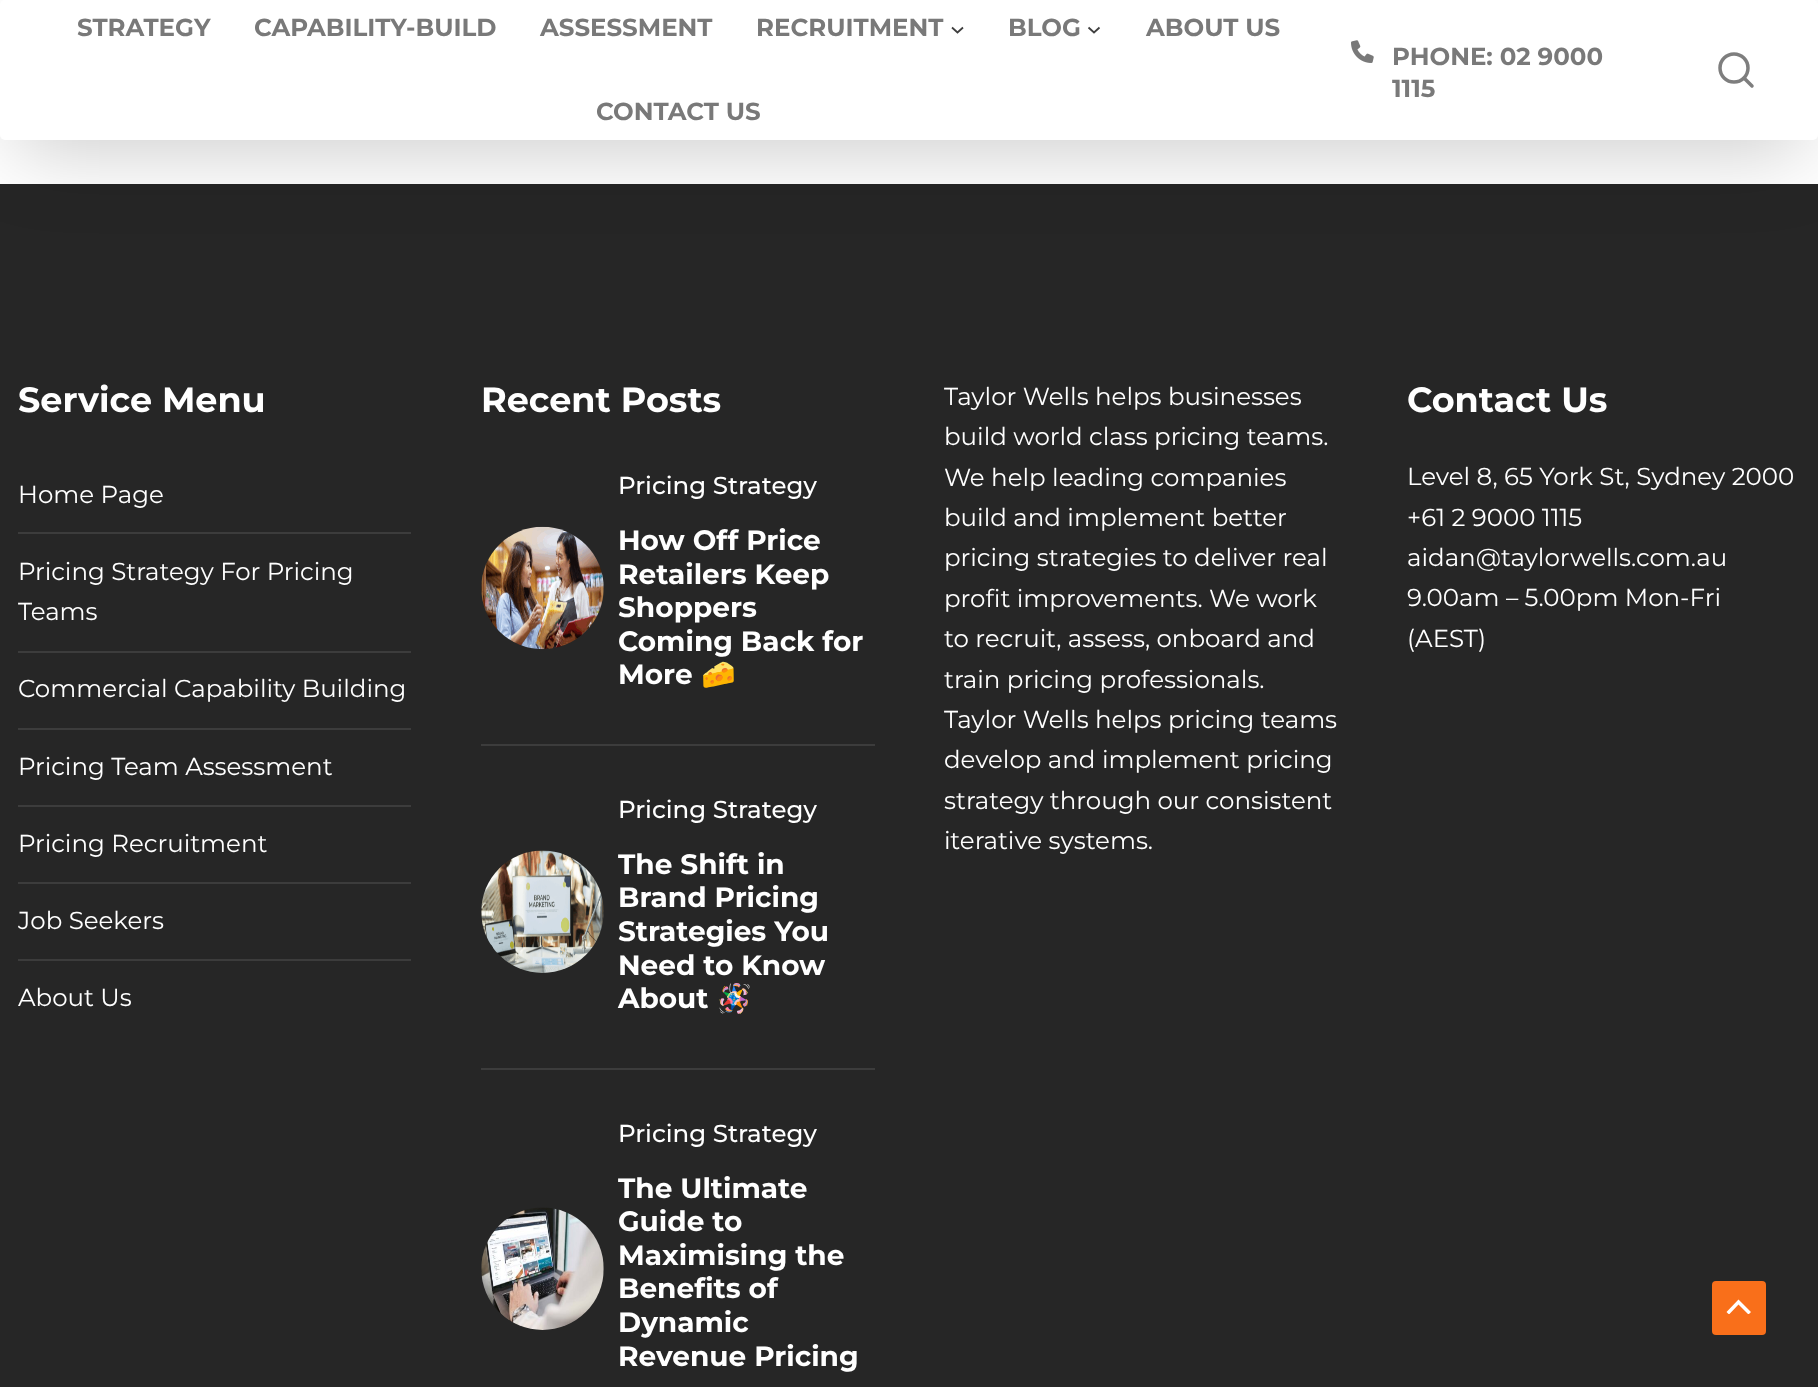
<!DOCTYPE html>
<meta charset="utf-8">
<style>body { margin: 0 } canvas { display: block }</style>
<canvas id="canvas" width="1818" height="1387"></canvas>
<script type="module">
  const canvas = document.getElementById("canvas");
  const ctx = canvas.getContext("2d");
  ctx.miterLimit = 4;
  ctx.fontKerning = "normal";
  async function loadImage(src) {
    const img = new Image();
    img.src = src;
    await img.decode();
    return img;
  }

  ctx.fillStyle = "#ffffff";
  ctx.fillRect(0, 0, 1818, 1387);
  ctx.fillStyle = "#262626";
  ctx.fillRect(0, 184, 1818, 1203);
  ctx.fillStyle = "rgba(0, 0, 0, 0.2)";
  ctx.filter = "blur(39.5px)";
  ctx.beginPath();
  ctx.rect(16, 42, 1787, 109);
  ctx.fill();
  ctx.filter = "none";
  ctx.fillStyle = "#ffffff";
  ctx.beginPath();
  ctx.roundRect(0, 0, 1818, 140, 5);
  ctx.fill();
  ctx.font = "bold 24.5px Montserrat";
  ctx.fillStyle = "#797979";
  ctx.fillText("STRATEGY", 77, 36);
  ctx.fillText("CAPABILITY-BUILD", 254, 36);
  ctx.fillText("ASSESSMENT", 540, 36);
  ctx.fillText("RECRUITMENT", 756, 36);
  ctx.beginPath();
  ctx.moveTo(952, 27.5);
  ctx.lineTo(957.5, 32.5);
  ctx.lineTo(963, 27.5);
  ctx.strokeStyle = "#3f3f3f";
  ctx.lineWidth = 1.8;
  ctx.stroke();
  ctx.fillText("BLOG", 1008, 36);
  ctx.beginPath();
  ctx.moveTo(1088.5, 27.5);
  ctx.lineTo(1094, 32.5);
  ctx.lineTo(1099.5, 27.5);
  ctx.stroke();
  ctx.fillText("ABOUT US", 1146, 36);
  ctx.fillText("CONTACT US", 596, 120);
  ctx.drawImage(await loadImage("img1.png"), 1351, 40, 23, 23);
  ctx.fillText("PHONE: 02 9000", 1392, 65);
  ctx.fillText("1115", 1392, 97);
  ctx.beginPath();
  ctx.arc(1734, 68, 14, 0, Math.PI * 2);
  ctx.strokeStyle = "#7e7e7e";
  ctx.lineWidth = 3.5;
  ctx.stroke();
  ctx.beginPath();
  ctx.moveTo(1752, 86);
  ctx.lineTo(1744, 78);
  ctx.lineCap = "round";
  ctx.lineJoin = "round";
  ctx.stroke();
  ctx.font = "bold 35px Montserrat";
  ctx.fillStyle = "#ffffff";
  ctx.fillText("Service Menu", 18, 412);
  ctx.fillStyle = "#3c3c3c";
  ctx.fillRect(18, 532, 393, 2);
  ctx.font = "24.5px Montserrat";
  ctx.fillStyle = "#ffffff";
  ctx.fillText("Home Page", 18, 503);
  ctx.fillStyle = "#3c3c3c";
  ctx.fillRect(18, 651, 393, 2);
  ctx.fillStyle = "#ffffff";
  ctx.fillText("Pricing Strategy For Pricing", 18, 580);
  ctx.fillText("Teams", 18, 620);
  ctx.fillStyle = "#3c3c3c";
  ctx.fillRect(18, 728, 393, 2);
  ctx.fillStyle = "#ffffff";
  ctx.fillText("Commercial Capability Building", 18, 697);
  ctx.fillStyle = "#3c3c3c";
  ctx.fillRect(18, 805, 393, 2);
  ctx.fillStyle = "#ffffff";
  ctx.fillText("Pricing Team Assessment", 18, 775);
  ctx.fillStyle = "#3c3c3c";
  ctx.fillRect(18, 882, 393, 2);
  ctx.fillStyle = "#ffffff";
  ctx.fillText("Pricing Recruitment", 18, 852);
  ctx.fillStyle = "#3c3c3c";
  ctx.fillRect(18, 959, 393, 2);
  ctx.fillStyle = "#ffffff";
  ctx.fillText("Job Seekers", 18, 929);
  ctx.fillText("About Us", 18, 1006);
  ctx.font = "bold 35px Montserrat";
  ctx.fillText("Recent Posts", 481, 412);
  ctx.fillStyle = "#3c3c3c";
  ctx.fillRect(481, 744, 394, 2);
  ctx.drawImage(await loadImage("img2.png"), 481, 526, 123, 124);
  ctx.font = "500 24.5px Montserrat";
  ctx.fillStyle = "#ffffff";
  ctx.fillText("Pricing Strategy", 618, 494);
  ctx.font = "bold 28px Montserrat";
  ctx.fillText("How Off Price", 618, 550);
  ctx.fillText("Retailers Keep", 618, 584);
  ctx.fillText("Shoppers", 618, 617);
  ctx.fillText("Coming Back for", 618, 651);
  ctx.fillText("More", 618, 684);
  ctx.font = "bold 28px Noto Color Emoji";
  ctx.fillText("🧀", 701, 684);
  ctx.fillStyle = "#3c3c3c";
  ctx.fillRect(481, 1068, 394, 2);
  ctx.drawImage(await loadImage("img3.png"), 481, 850, 123, 123);
  ctx.font = "500 24.5px Montserrat";
  ctx.fillStyle = "#ffffff";
  ctx.fillText("Pricing Strategy", 618, 818);
  ctx.font = "bold 28px Montserrat";
  ctx.fillText("The Shift in", 618, 874);
  ctx.fillText("Brand Pricing", 618, 907);
  ctx.fillText("Strategies You", 618, 941);
  ctx.fillText("Need to Know", 618, 975);
  ctx.fillText("About", 618, 1008);
  ctx.font = "bold 28px Noto Color Emoji";
  ctx.fillText("🪅", 717, 1008);
  ctx.drawImage(await loadImage("img4.png"), 481, 1207, 123, 123);
  ctx.font = "500 24.5px Montserrat";
  ctx.fillText("Pricing Strategy", 618, 1142);
  ctx.font = "bold 28px Montserrat";
  ctx.fillText("The Ultimate", 618, 1198);
  ctx.fillText("Guide to", 618, 1231);
  ctx.fillText("Maximising the", 618, 1265);
  ctx.fillText("Benefits of", 618, 1298);
  ctx.fillText("Dynamic", 618, 1332);
  ctx.fillText("Revenue Pricing", 618, 1366);
  ctx.font = "24.5px Montserrat";
  ctx.fillText("Taylor Wells helps businesses", 944, 405);
  ctx.fillText("build world class pricing teams.", 944, 445);
  ctx.fillText("We help leading companies", 944, 486);
  ctx.fillText("build and implement better", 944, 526);
  ctx.fillText("pricing strategies to deliver real", 944, 566);
  ctx.fillText("profit improvements. We work", 944, 607);
  ctx.fillText("to recruit, assess, onboard and", 944, 647);
  ctx.fillText("train pricing professionals.", 944, 688);
  ctx.fillText("Taylor Wells helps pricing teams", 944, 728);
  ctx.fillText("develop and implement pricing", 944, 768);
  ctx.fillText("strategy through our consistent", 944, 809);
  ctx.fillText("iterative systems.", 944, 849);
  ctx.font = "bold 35px Montserrat";
  ctx.fillText("Contact Us", 1407, 412);
  ctx.font = "24.5px Montserrat";
  ctx.fillText("Level 8, 65 York St, Sydney 2000", 1407, 485);
  ctx.fillText("+61 2 9000 1115", 1407, 526);
  ctx.fillText("aidan@taylorwells.com.au", 1407, 566);
  ctx.fillText("9.00am – 5.00pm Mon-Fri", 1407, 606);
  ctx.fillText("(AEST)", 1407, 647);
  ctx.fillStyle = "#f96f1a";
  ctx.beginPath();
  ctx.roundRect(1712, 1281, 54, 54, 4);
  ctx.fill();
  ctx.save();
  ctx.beginPath();
  ctx.rect(1717, 1299, 42, 15);
  ctx.clip();
  ctx.fillStyle = "#ffffff";
  ctx.beginPath();
  ctx.moveTo(1751, 1312);
  ctx.lineTo(1738.5, 1299.5);
  ctx.lineTo(1726.5, 1312);
  ctx.lineTo(1729, 1314.5);
  ctx.lineTo(1738.5, 1304.5);
  ctx.lineTo(1748.5, 1314.5);
  ctx.closePath();
  ctx.fill();
  ctx.restore();
</script>
